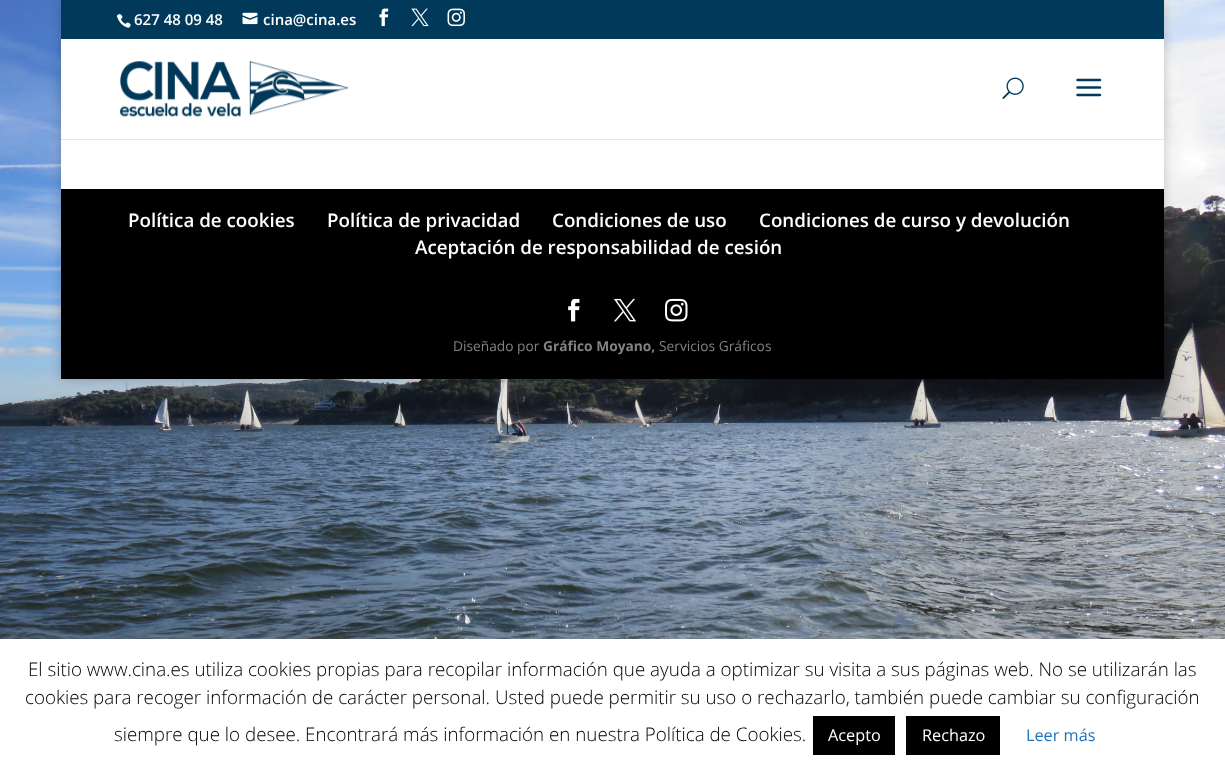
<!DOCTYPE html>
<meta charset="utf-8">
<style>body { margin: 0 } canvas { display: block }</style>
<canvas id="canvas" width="1225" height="769"></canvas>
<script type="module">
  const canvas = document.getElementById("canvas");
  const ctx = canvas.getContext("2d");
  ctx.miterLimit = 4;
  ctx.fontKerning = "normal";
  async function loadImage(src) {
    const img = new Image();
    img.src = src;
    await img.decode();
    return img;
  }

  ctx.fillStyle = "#ffffff";
  ctx.fillRect(0, 0, 1225, 769);
  ctx.drawImage(await loadImage("img1.png"), 0, 0, 1225, 639);
  ctx.fillStyle = "rgba(0, 0, 0, 0.2)";
  ctx.filter = "blur(6px)";
  ctx.beginPath();
  ctx.rect(61, 0, 1103, 379);
  ctx.fill();
  ctx.filter = "none";
  ctx.fillStyle = "#003959";
  ctx.fillRect(61, 0, 1103, 39);
  ctx.drawImage(await loadImage("img2.png"), 116, 14, 15, 14);
  ctx.font = "600 15px Open Sans";
  ctx.fillStyle = "#ffffff";
  ctx.fillText("627 48 09 48", 134, 25);
  ctx.drawImage(await loadImage("img3.png"), 242, 12, 16, 13);
  ctx.fillText("cina@cina.es", 263, 25);
  ctx.drawImage(await loadImage("img4.png"), 379, 8, 10, 19);
  ctx.drawImage(await loadImage("img5.png"), 411, 8, 18, 19);
  ctx.drawImage(await loadImage("img6.png"), 447, 8, 18, 19);
  ctx.fillStyle = "#e6e6e6";
  ctx.beginPath();
  ctx.moveTo(61, 40);
  ctx.lineTo(61, 140);
  ctx.lineTo(1164, 140);
  ctx.lineTo(1164, 40);
  ctx.lineTo(1164, 139);
  ctx.lineTo(61, 139);
  ctx.closePath();
  ctx.fill();
  ctx.fillStyle = "#ffffff";
  ctx.fillRect(61, 39, 1103, 100);
  ctx.drawImage(await loadImage("img7.png"), 120, 61, 229, 56);
  ctx.drawImage(await loadImage("img8.png"), 1002, 77, 22, 22);
  ctx.drawImage(await loadImage("img9.png"), 1076, 78, 26, 19);
  ctx.fillRect(61, 140, 1103, 49);
  ctx.fillStyle = "#000000";
  ctx.fillRect(61, 189, 1103, 190);
  ctx.font = "600 18.75px Open Sans";
  ctx.fillStyle = "#ffffff";
  ctx.fillText("Política de cookies", 128, 227);
  ctx.fillText("Política de privacidad", 327, 227);
  ctx.fillText("Condiciones de uso", 552, 227);
  ctx.fillText("Condiciones de curso y devolución", 759, 227);
  ctx.fillText("Aceptación de responsabilidad de cesión", 415, 254);
  ctx.drawImage(await loadImage("img10.png"), 568, 298, 12, 24);
  ctx.drawImage(await loadImage("img11.png"), 613, 298, 24, 24);
  ctx.drawImage(await loadImage("img12.png"), 665, 298, 23, 24);
  ctx.font = "13.75px Open Sans";
  ctx.fillStyle = "#828282";
  ctx.fillText("Diseñado por", 453, 351);
  ctx.font = "bold 13.75px Open Sans";
  ctx.fillText("Gráfico Moyano,", 543, 351);
  ctx.font = "13.75px Open Sans";
  ctx.fillText("Servicios Gráficos", 659, 351);
  ctx.fillStyle = "rgba(172, 171, 171, 0.3)";
  ctx.filter = "blur(6px)";
  ctx.beginPath();
  ctx.rect(0, 638, 1225, 131);
  ctx.fill();
  ctx.filter = "none";
  ctx.fillStyle = "#ffffff";
  ctx.fillRect(0, 639, 1225, 130);
  ctx.font = "300 18.75px Open Sans";
  ctx.fillStyle = "#000000";
  ctx.fillText("El sitio www.cina.es utiliza cookies propias para recopilar información que ayuda a optimizar su visita a sus páginas web. No se utilizarán las", 28, 676);
  ctx.fillText("cookies para recoger información de carácter personal. Usted puede permitir su uso o rechazarlo, también puede cambiar su configuración", 25, 704);
  ctx.fillText("siempre que lo desee. Encontrará más información en nuestra Política de Cookies.", 114, 741);
  ctx.fillRect(813, 716, 82, 39);
  ctx.font = "16.25px Open Sans";
  ctx.fillStyle = "#ffffff";
  ctx.fillText("Acepto", 828, 741);
  ctx.fillStyle = "#000000";
  ctx.fillRect(906, 716, 94, 39);
  ctx.fillStyle = "#ffffff";
  ctx.fillText("Rechazo", 922, 741);
  ctx.fillStyle = "#1e73be";
  ctx.fillText("Leer más", 1026, 741);
</script>
